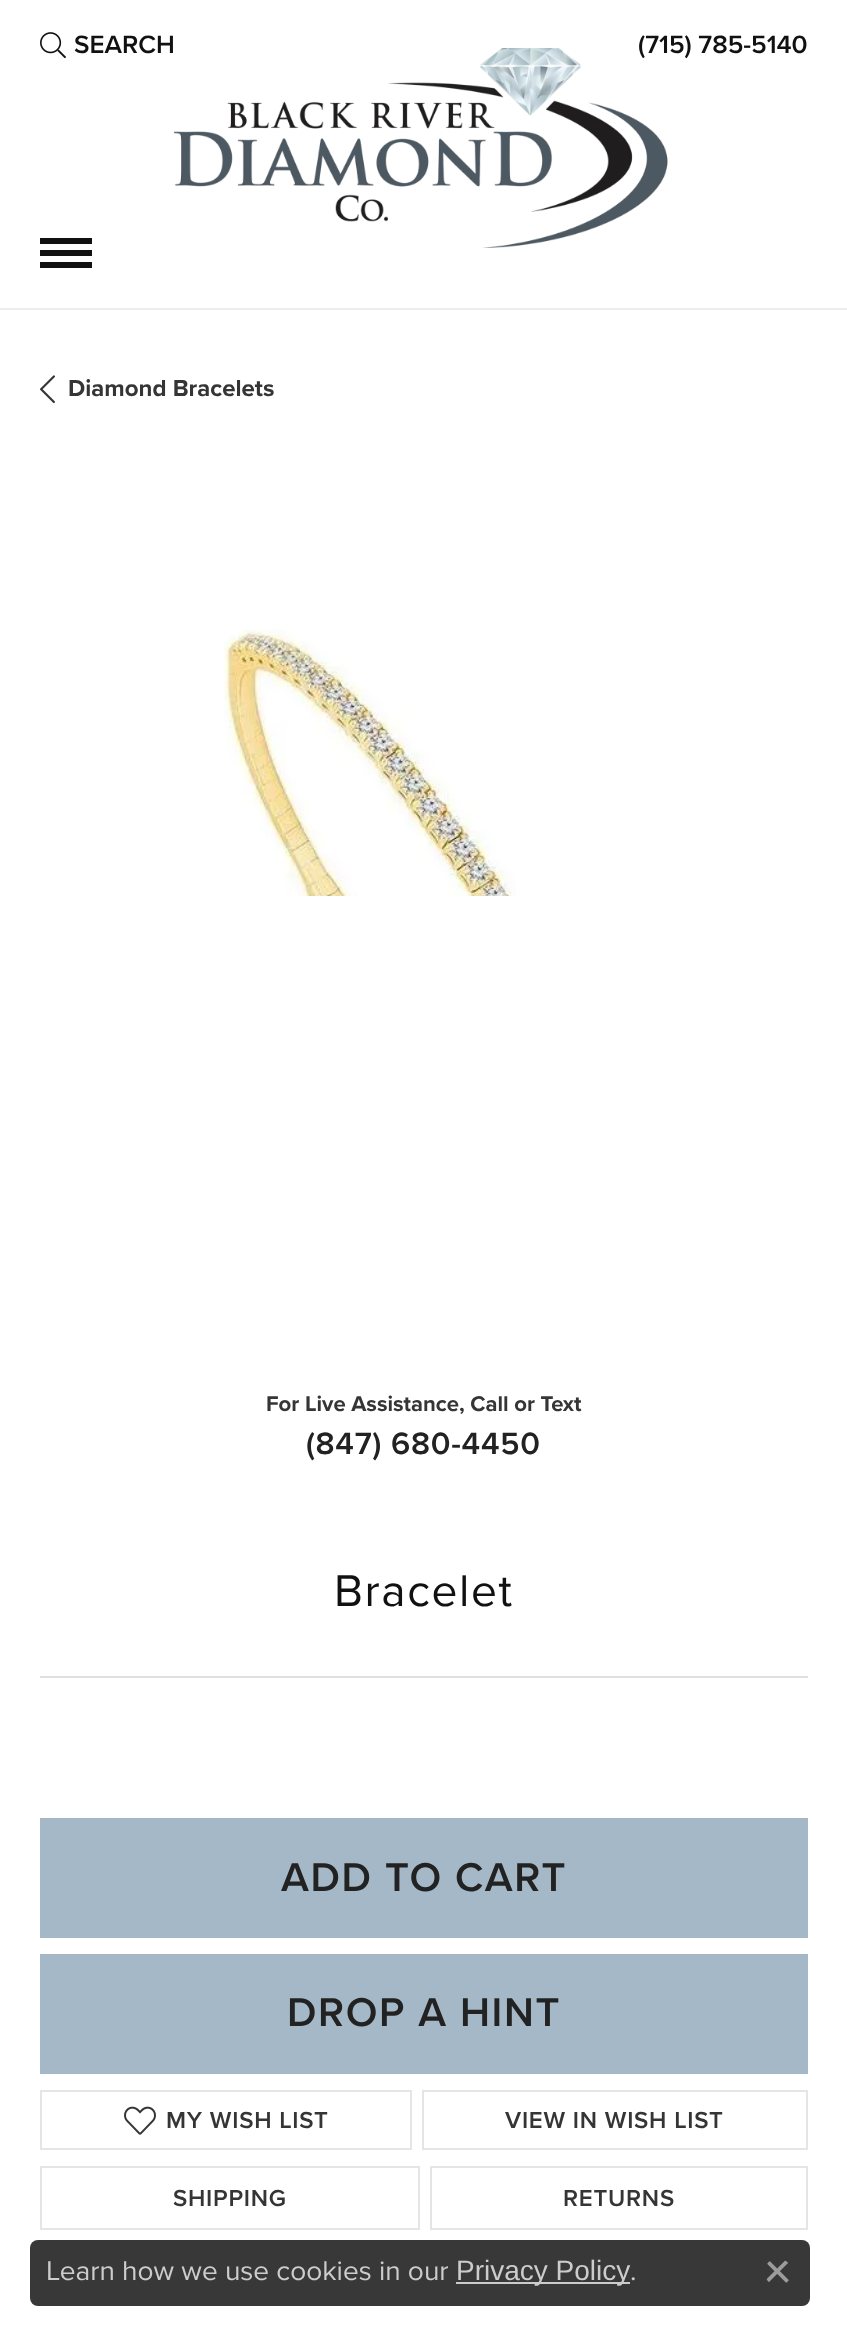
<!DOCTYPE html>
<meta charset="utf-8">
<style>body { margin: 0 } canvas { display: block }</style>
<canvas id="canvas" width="847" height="2335"></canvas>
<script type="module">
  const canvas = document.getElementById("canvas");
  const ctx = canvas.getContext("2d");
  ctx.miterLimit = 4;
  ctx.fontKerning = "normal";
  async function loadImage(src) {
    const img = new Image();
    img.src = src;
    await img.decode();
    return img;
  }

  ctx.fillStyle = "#ffffff";
  ctx.fillRect(0, 0, 847, 2335);
  ctx.drawImage(await loadImage("img1.png"), 40, 32, 26, 27);
  ctx.font = "600 26px Proxima Nova";
  ctx.fillStyle = "#111111";
  ctx.fillText("SEARCH", 74, 53);
  ctx.fillText("(715) 785-5140", 638, 53);
  ctx.drawImage(await loadImage("img2.png"), 174, 48, 494, 200);
  ctx.fillStyle = "#ececec";
  ctx.fillRect(0, 308, 847, 2);
  ctx.fillStyle = "#111111";
  ctx.fillRect(40, 238, 52, 6);
  ctx.fillRect(40, 250, 52, 6);
  ctx.fillRect(40, 262, 52, 6);
  ctx.drawImage(await loadImage("img3.png"), 40, 375, 15, 29);
  ctx.font = "bold 24px Proxima Nova";
  ctx.fillStyle = "#353535";
  ctx.fillText("Diamond Bracelets", 68, 396);
  ctx.drawImage(await loadImage("img4.png"), 224, 629, 292, 267);
  ctx.font = "bold 22.1px Proxima Nova";
  ctx.fillText("For Live Assistance, Call or Text", 266, 1411);
  ctx.letterSpacing = "0.75px";
  ctx.font = "600 32px Proxima Nova";
  ctx.fillStyle = "#222222";
  ctx.fillText("(847) 680-4450", 306, 1454);
  ctx.letterSpacing = "1.6px";
  ctx.font = "46px Proxima Nova";
  ctx.fillStyle = "#111111";
  ctx.fillText("Bracelet", 334, 1606);
  ctx.fillStyle = "#e0e0e0";
  ctx.fillRect(40, 1676, 768, 2);
  ctx.fillStyle = "#a4b8c7";
  ctx.fillRect(40, 1818, 768, 120);
  ctx.font = "600 41.5px Proxima Nova";
  ctx.fillStyle = "#222222";
  ctx.fillText("ADD TO CART", 281, 1891);
  ctx.fillStyle = "#a4b8c7";
  ctx.fillRect(40, 1954, 768, 120);
  ctx.fillStyle = "#222222";
  ctx.fillText("DROP A HINT", 287, 2026);
  ctx.strokeStyle = "#e5e5e5";
  ctx.lineWidth = 2;
  ctx.strokeRect(41, 2091, 370, 58);
  ctx.drawImage(await loadImage("img5.png"), 124, 2106, 32, 29);
  ctx.letterSpacing = "0.75px";
  ctx.font = "600 24px Proxima Nova";
  ctx.fillStyle = "#353535";
  ctx.fillText("MY WISH LIST", 166, 2128);
  ctx.strokeRect(423, 2091, 384, 58);
  ctx.fillText("VIEW IN WISH LIST", 505, 2128);
  ctx.strokeRect(41, 2167, 378, 62);
  ctx.fillText("SHIPPING", 173, 2206);
  ctx.strokeRect(431, 2167, 376, 62);
  ctx.fillText("RETURNS", 563, 2206);
  ctx.fillStyle = "#383838";
  ctx.beginPath();
  ctx.roundRect(30, 2240, 780, 66, 8);
  ctx.fill();
  ctx.letterSpacing = "0px";
  ctx.font = "28px Proxima Nova";
  ctx.fillStyle = "#cccccc";
  ctx.fillText("Learn how we use cookies in our", 46, 2280);
  ctx.fillRect(456, 2282, 174, 2);
  ctx.font = "28px Liberation Sans";
  ctx.fillText("Privacy Policy", 456, 2280);
  ctx.font = "28px Proxima Nova";
  ctx.fillText(".", 630, 2280);
  ctx.drawImage(await loadImage("img6.png"), 766, 2260, 23, 23);
</script>
